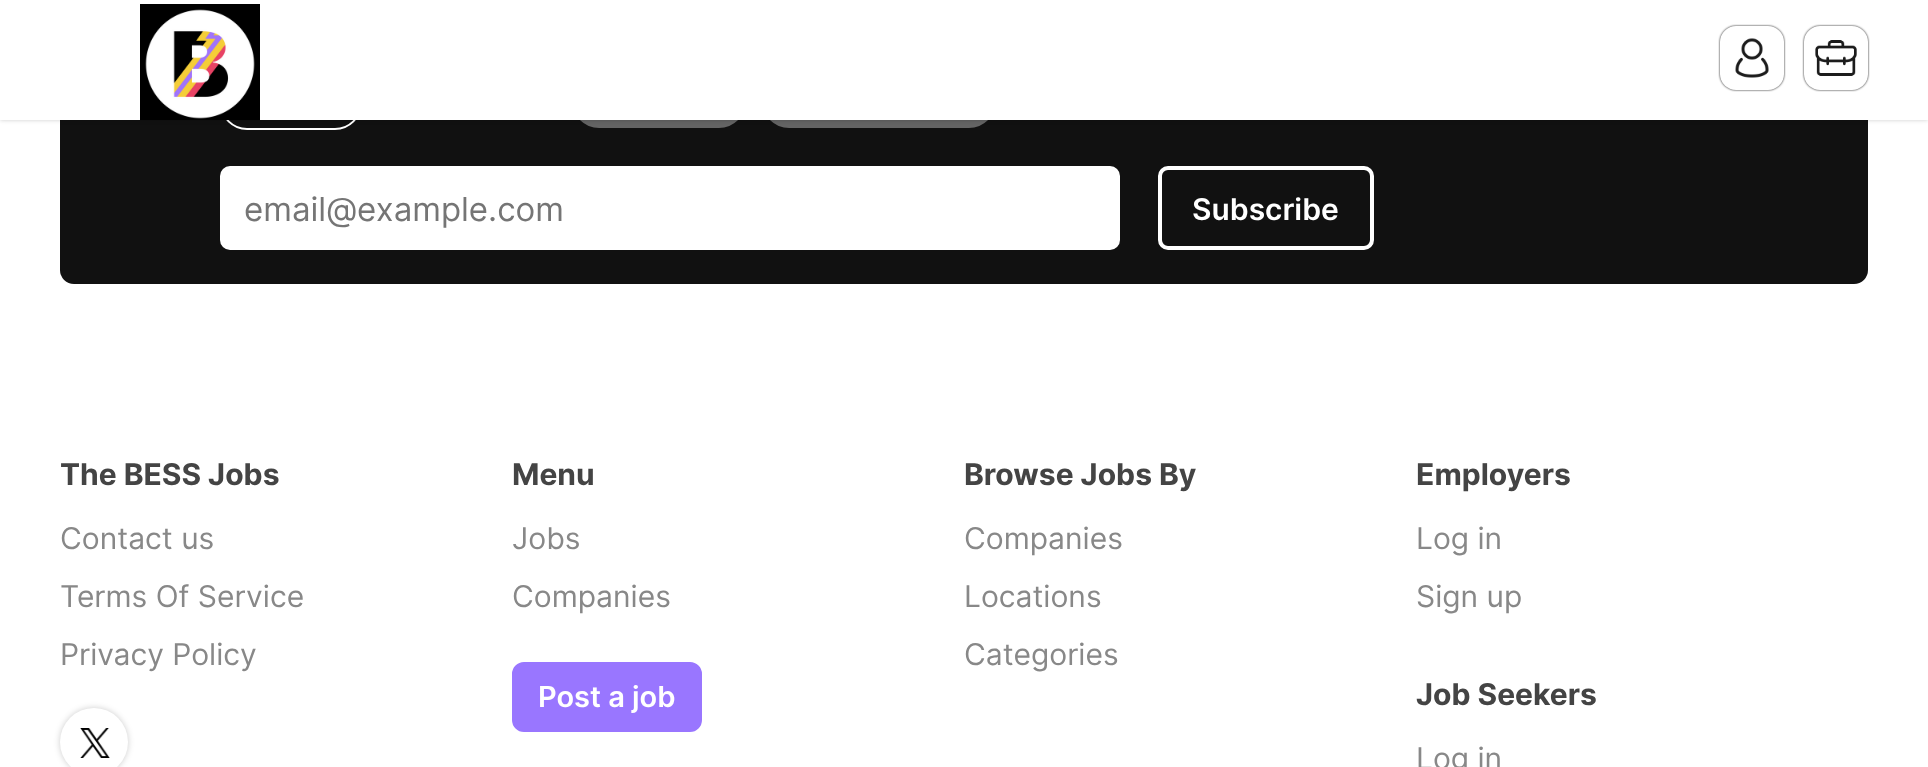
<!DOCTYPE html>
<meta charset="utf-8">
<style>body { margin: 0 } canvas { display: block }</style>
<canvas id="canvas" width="1928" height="767"></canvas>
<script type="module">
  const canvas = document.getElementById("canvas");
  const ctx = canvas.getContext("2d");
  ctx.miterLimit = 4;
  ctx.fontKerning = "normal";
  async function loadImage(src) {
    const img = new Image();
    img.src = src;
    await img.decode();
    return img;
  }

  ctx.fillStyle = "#ffffff";
  ctx.fillRect(0, 0, 1928, 767);
  ctx.fillStyle = "#111111";
  ctx.beginPath();
  ctx.roundRect(60, -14, 1808, 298, 14);
  ctx.fill();
  ctx.beginPath();
  ctx.roundRect(221, 77, 140, 52, 26);
  ctx.strokeStyle = "#ffffff";
  ctx.lineWidth = 2;
  ctx.stroke();
  ctx.fillStyle = "#646464";
  ctx.beginPath();
  ctx.roundRect(572, 74, 174, 54, 27);
  ctx.fill();
  ctx.beginPath();
  ctx.roundRect(762, 74, 234, 54, 27);
  ctx.fill();
  ctx.fillStyle = "rgba(0, 0, 0, 0.2)";
  ctx.filter = "blur(2px)";
  ctx.beginPath();
  ctx.rect(0, 0, 1928, 120);
  ctx.fill();
  ctx.filter = "none";
  ctx.fillStyle = "#ffffff";
  ctx.fillRect(0, 0, 1928, 120);
  ctx.drawImage(await loadImage("img1.png"), 140, 4, 120, 116);
  ctx.fillStyle = "rgba(0, 0, 0, 0.9)";
  ctx.filter = "blur(1px)";
  ctx.beginPath();
  ctx.roundRect(1720, 26, 64, 64, 16);
  ctx.fill();
  ctx.filter = "none";
  ctx.fillStyle = "#ffffff";
  ctx.beginPath();
  ctx.roundRect(1720, 26, 64, 64, 16);
  ctx.fill();
  ctx.drawImage(await loadImage("img2.png"), 1735, 38, 34, 40);
  ctx.fillStyle = "rgba(0, 0, 0, 0.9)";
  ctx.filter = "blur(1px)";
  ctx.beginPath();
  ctx.roundRect(1804, 26, 64, 64, 16);
  ctx.fill();
  ctx.filter = "none";
  ctx.fillStyle = "#ffffff";
  ctx.beginPath();
  ctx.roundRect(1804, 26, 64, 64, 16);
  ctx.fill();
  ctx.drawImage(await loadImage("img3.png"), 1815, 40, 42, 36);
  ctx.beginPath();
  ctx.roundRect(220, 166, 900, 84, 10);
  ctx.fill();
  ctx.font = "33px Inter";
  ctx.fillStyle = "#757575";
  ctx.fillText("email@example.com", 244, 221);
  ctx.beginPath();
  ctx.roundRect(1160, 168, 212, 80, 8);
  ctx.lineWidth = 4;
  ctx.stroke();
  ctx.font = "600 30px Inter";
  ctx.fillStyle = "#ffffff";
  ctx.fillText("Subscribe", 1192, 220);
  ctx.font = "bold 30px Inter";
  ctx.fillStyle = "#444444";
  ctx.fillText("The BESS Jobs", 60, 485);
  ctx.font = "30px Inter";
  ctx.fillStyle = "#888888";
  ctx.fillText("Contact us", 60, 549);
  ctx.fillText("Terms Of Service", 60, 607);
  ctx.fillText("Privacy Policy", 60, 665);
  ctx.fillStyle = "rgba(0, 0, 0, 0.2)";
  ctx.filter = "blur(3px)";
  ctx.beginPath();
  ctx.roundRect(60, 708, 68, 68, 34);
  ctx.fill();
  ctx.filter = "none";
  ctx.fillStyle = "#ffffff";
  ctx.beginPath();
  ctx.arc(94, 742, 34, 0, Math.PI * 2);
  ctx.fill();
  ctx.drawImage(await loadImage("img4.png"), 80, 728, 30, 30);
  ctx.font = "bold 30px Inter";
  ctx.fillStyle = "#444444";
  ctx.fillText("Menu", 512, 485);
  ctx.font = "30px Inter";
  ctx.fillStyle = "#888888";
  ctx.fillText("Jobs", 512, 549);
  ctx.fillText("Companies", 512, 607);
  ctx.fillStyle = "#9976ff";
  ctx.beginPath();
  ctx.roundRect(513, 663, 188, 68, 11);
  ctx.fill();
  ctx.strokeStyle = "#9976ff";
  ctx.lineWidth = 2;
  ctx.stroke();
  ctx.font = "600 29px Inter";
  ctx.fillStyle = "#ffffff";
  ctx.fillText("Post a job", 538, 707);
  ctx.font = "bold 30px Inter";
  ctx.fillStyle = "#444444";
  ctx.fillText("Browse Jobs By", 964, 485);
  ctx.font = "30px Inter";
  ctx.fillStyle = "#888888";
  ctx.fillText("Companies", 964, 549);
  ctx.fillText("Locations", 964, 607);
  ctx.fillText("Categories", 964, 665);
  ctx.font = "bold 30px Inter";
  ctx.fillStyle = "#444444";
  ctx.fillText("Employers", 1416, 485);
  ctx.font = "30px Inter";
  ctx.fillStyle = "#888888";
  ctx.fillText("Log in", 1416, 549);
  ctx.fillText("Sign up", 1416, 607);
  ctx.font = "bold 30px Inter";
  ctx.fillStyle = "#444444";
  ctx.fillText("Job Seekers", 1416, 705);
  ctx.font = "30px Inter";
  ctx.fillStyle = "#888888";
  ctx.fillText("Log in", 1416, 769);
</script>
